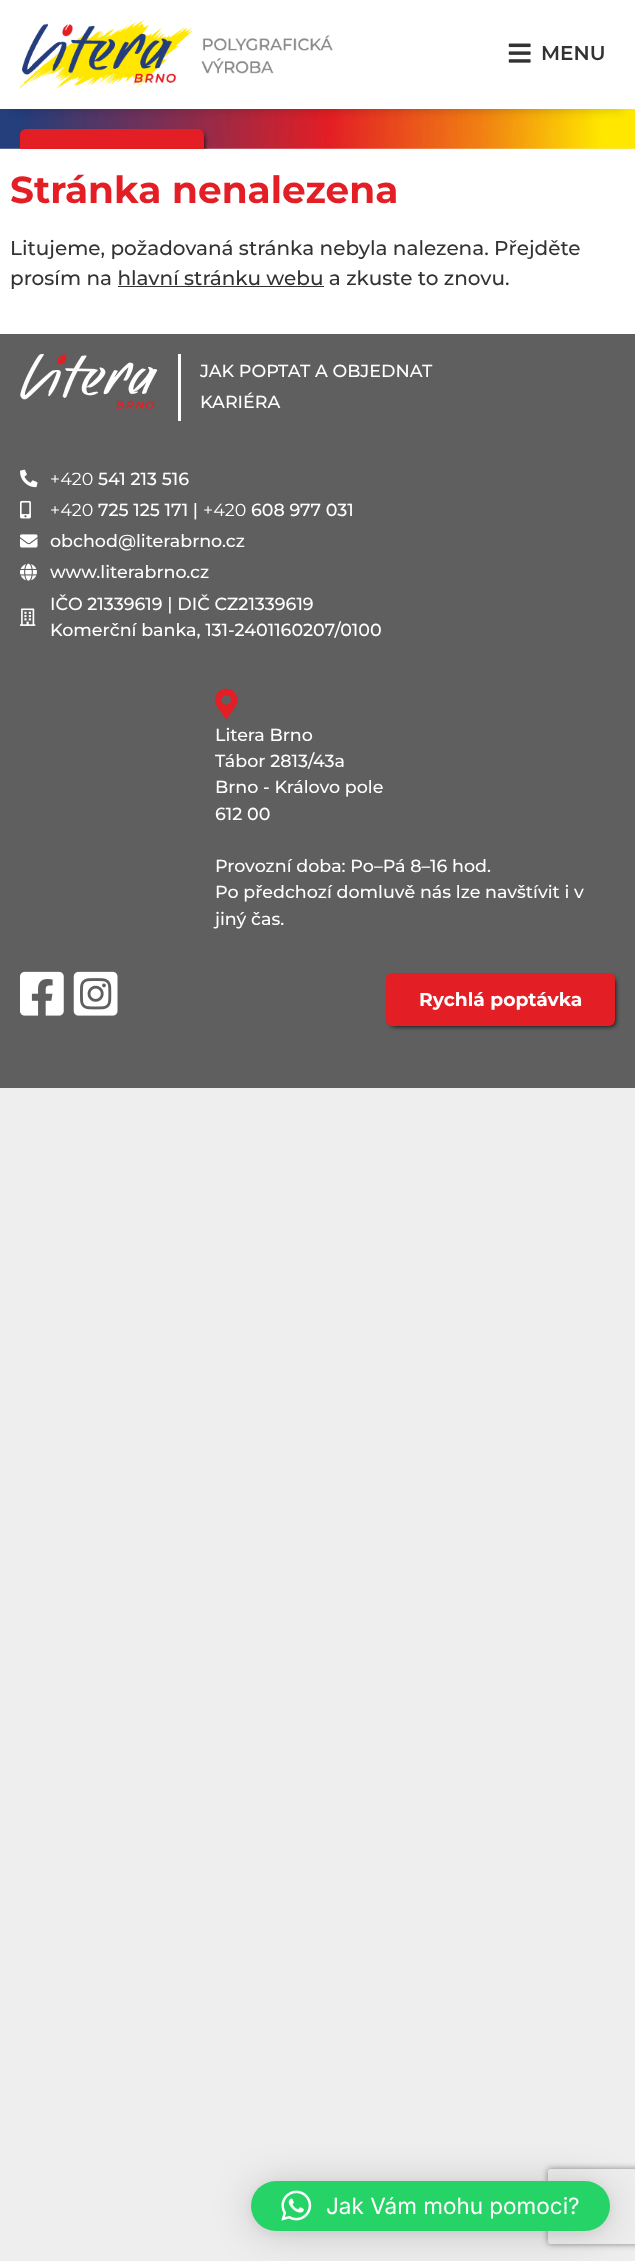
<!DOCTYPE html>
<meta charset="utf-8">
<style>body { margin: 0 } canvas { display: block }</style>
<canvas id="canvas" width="635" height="2261"></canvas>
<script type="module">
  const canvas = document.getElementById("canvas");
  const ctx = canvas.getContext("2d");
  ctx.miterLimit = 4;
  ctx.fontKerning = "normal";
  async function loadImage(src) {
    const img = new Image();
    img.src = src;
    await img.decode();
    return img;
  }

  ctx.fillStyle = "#eeeeee";
  ctx.fillRect(0, 0, 635, 2261);
  ctx.drawImage(await loadImage("img3.png"), 0, 109, 635, 40);
  ctx.fillStyle = "rgba(0, 0, 0, 0.2)";
  ctx.filter = "blur(6px)";
  ctx.beginPath();
  ctx.rect(13, 25, 610, 84);
  ctx.fill();
  ctx.filter = "none";
  ctx.fillStyle = "#ffffff";
  ctx.fillRect(0, 0, 635, 109);
  ctx.drawImage(await loadImage("img1.png"), 20, 20, 313, 69);
  ctx.drawImage(await loadImage("img2.png"), 508, 43, 23, 20);
  ctx.font = "600 20px Montserrat";
  ctx.fillStyle = "#333333";
  ctx.fillText("MENU", 541, 60);
  ctx.fillStyle = "#000000";
  ctx.filter = "blur(2.5px)";
  ctx.beginPath();
  ctx.roundRect(25, 134, 179, 49, 4);
  ctx.fill();
  ctx.filter = "none";
  ctx.fillStyle = "#e31e25";
  ctx.beginPath();
  ctx.roundRect(21.5, 130.5, 181, 51, 4.5);
  ctx.fill();
  ctx.strokeStyle = "#e31e25";
  ctx.lineWidth = 3;
  ctx.stroke();
  ctx.fillStyle = "#ffffff";
  ctx.fillRect(0, 149, 635, 185);
  ctx.font = "bold 37.5px Montserrat";
  ctx.fillStyle = "#e31e25";
  ctx.fillText("Stránka nenalezena", 10, 203);
  ctx.font = "500 20px Montserrat";
  ctx.fillStyle = "#333333";
  ctx.fillText("Litujeme, požadovaná stránka nebyla nalezena. Přejděte", 10, 255);
  ctx.fillText("prosím na hlavní stránku webu a zkuste to znovu.", 10, 285);
  ctx.fillRect(118, 286, 206, 1);
  ctx.fillStyle = "#5f5f5f";
  ctx.fillRect(0, 334, 635, 754);
  ctx.drawImage(await loadImage("img4.png"), 20, 354, 138, 55);
  ctx.fillStyle = "#ffffff";
  ctx.fillRect(178, 354, 3, 67);
  ctx.font = "500 17.5px Montserrat";
  ctx.fillText("JAK POPTAT A OBJEDNAT", 200, 377);
  ctx.fillText("KARIÉRA", 200, 408);
  ctx.drawImage(await loadImage("img5.png"), 20, 469, 18, 19);
  ctx.font = "17.5px Montserrat";
  ctx.fillText("+420", 50, 485);
  ctx.font = "500 17.5px Montserrat";
  ctx.fillText("541 213 516", 98, 485);
  ctx.drawImage(await loadImage("img6.png"), 20, 500, 11, 19);
  ctx.font = "17.5px Montserrat";
  ctx.fillText("+420", 50, 516);
  ctx.font = "500 17.5px Montserrat";
  ctx.fillText("725 125 171 |", 98, 516);
  ctx.font = "17.5px Montserrat";
  ctx.fillText("+420", 203, 516);
  ctx.font = "500 17.5px Montserrat";
  ctx.fillText("608 977 031", 251, 516);
  ctx.drawImage(await loadImage("img7.png"), 20, 534, 18, 14);
  ctx.fillText("obchod@literabrno.cz", 50, 547);
  ctx.drawImage(await loadImage("img8.png"), 20, 563, 17, 18);
  ctx.fillText("www.literabrno.cz", 50, 578);
  ctx.drawImage(await loadImage("img9.png"), 20, 608, 16, 18);
  ctx.fillText("IČO 21339619 | DIČ CZ21339619", 50, 610);
  ctx.fillText("Komerční banka, 131-2401160207/0100", 50, 636);
  ctx.drawImage(await loadImage("img10.png"), 215, 688, 23, 31);
  ctx.fillText("Litera Brno", 215, 741);
  ctx.fillText("Tábor 2813/43a", 215, 767);
  ctx.fillText("Brno - Královo pole", 215, 793);
  ctx.fillText("612 00", 215, 820);
  ctx.fillText("Provozní doba: Po–Pá 8–16 hod.", 215, 872);
  ctx.fillText("Po předchozí domluvě nás lze navštívit i v", 215, 898);
  ctx.fillText("jiný čas.", 215, 925);
  ctx.drawImage(await loadImage("img11.png"), 20, 971, 44, 45);
  ctx.drawImage(await loadImage("img12.png"), 73, 971, 45, 45);
  ctx.fillStyle = "#000000";
  ctx.filter = "blur(2.5px)";
  ctx.beginPath();
  ctx.roundRect(391, 978, 224, 48, 4);
  ctx.fill();
  ctx.filter = "none";
  ctx.fillStyle = "#e31e25";
  ctx.beginPath();
  ctx.roundRect(387.5, 974.5, 226, 50, 4.5);
  ctx.fill();
  ctx.stroke();
  ctx.font = "bold 18.75px Montserrat";
  ctx.fillStyle = "#ffffff";
  ctx.fillText("Rychlá poptávka", 419, 1006);
  ctx.fillStyle = "rgba(0, 0, 0, 0.16)";
  ctx.filter = "blur(20px)";
  ctx.beginPath();
  ctx.roundRect(251, 2184, 359, 50, 25);
  ctx.fill();
  ctx.filter = "none";
  ctx.fillStyle = "rgba(0, 0, 0, 0.06)";
  ctx.filter = "blur(4px)";
  ctx.beginPath();
  ctx.roundRect(251, 2183, 359, 50, 25);
  ctx.fill();
  ctx.filter = "none";
  ctx.save();
  ctx.beginPath();
  ctx.moveTo(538, 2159);
  ctx.lineTo(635, 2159);
  ctx.lineTo(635, 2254);
  ctx.lineTo(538, 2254);
  ctx.closePath();
  ctx.moveTo(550.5, 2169);
  ctx.lineTo(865.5, 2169);
  ctx.bezierCurveTo(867, 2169, 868, 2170, 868, 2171.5);
  ctx.lineTo(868, 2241.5);
  ctx.bezierCurveTo(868, 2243, 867, 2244, 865.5, 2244);
  ctx.lineTo(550.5, 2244);
  ctx.bezierCurveTo(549, 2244, 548, 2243, 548, 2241.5);
  ctx.lineTo(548, 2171.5);
  ctx.bezierCurveTo(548, 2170, 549, 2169, 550.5, 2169);
  ctx.closePath();
  ctx.clip("evenodd");
  ctx.fillStyle = "#808080";
  ctx.filter = "blur(3px)";
  ctx.beginPath();
  ctx.roundRect(548, 2169, 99, 75, 2.5);
  ctx.fill();
  ctx.filter = "none";
  ctx.restore();
  ctx.fillStyle = "#25d366";
  ctx.beginPath();
  ctx.roundRect(251, 2181, 359, 50, 25);
  ctx.fill();
  ctx.drawImage(await loadImage("img13.png"), 281, 2190, 31, 31);
  ctx.font = "22.5px Inter";
  ctx.fillStyle = "#ffffff";
  ctx.fillText("Jak Vám mohu pomoci?", 326, 2214);
</script>
